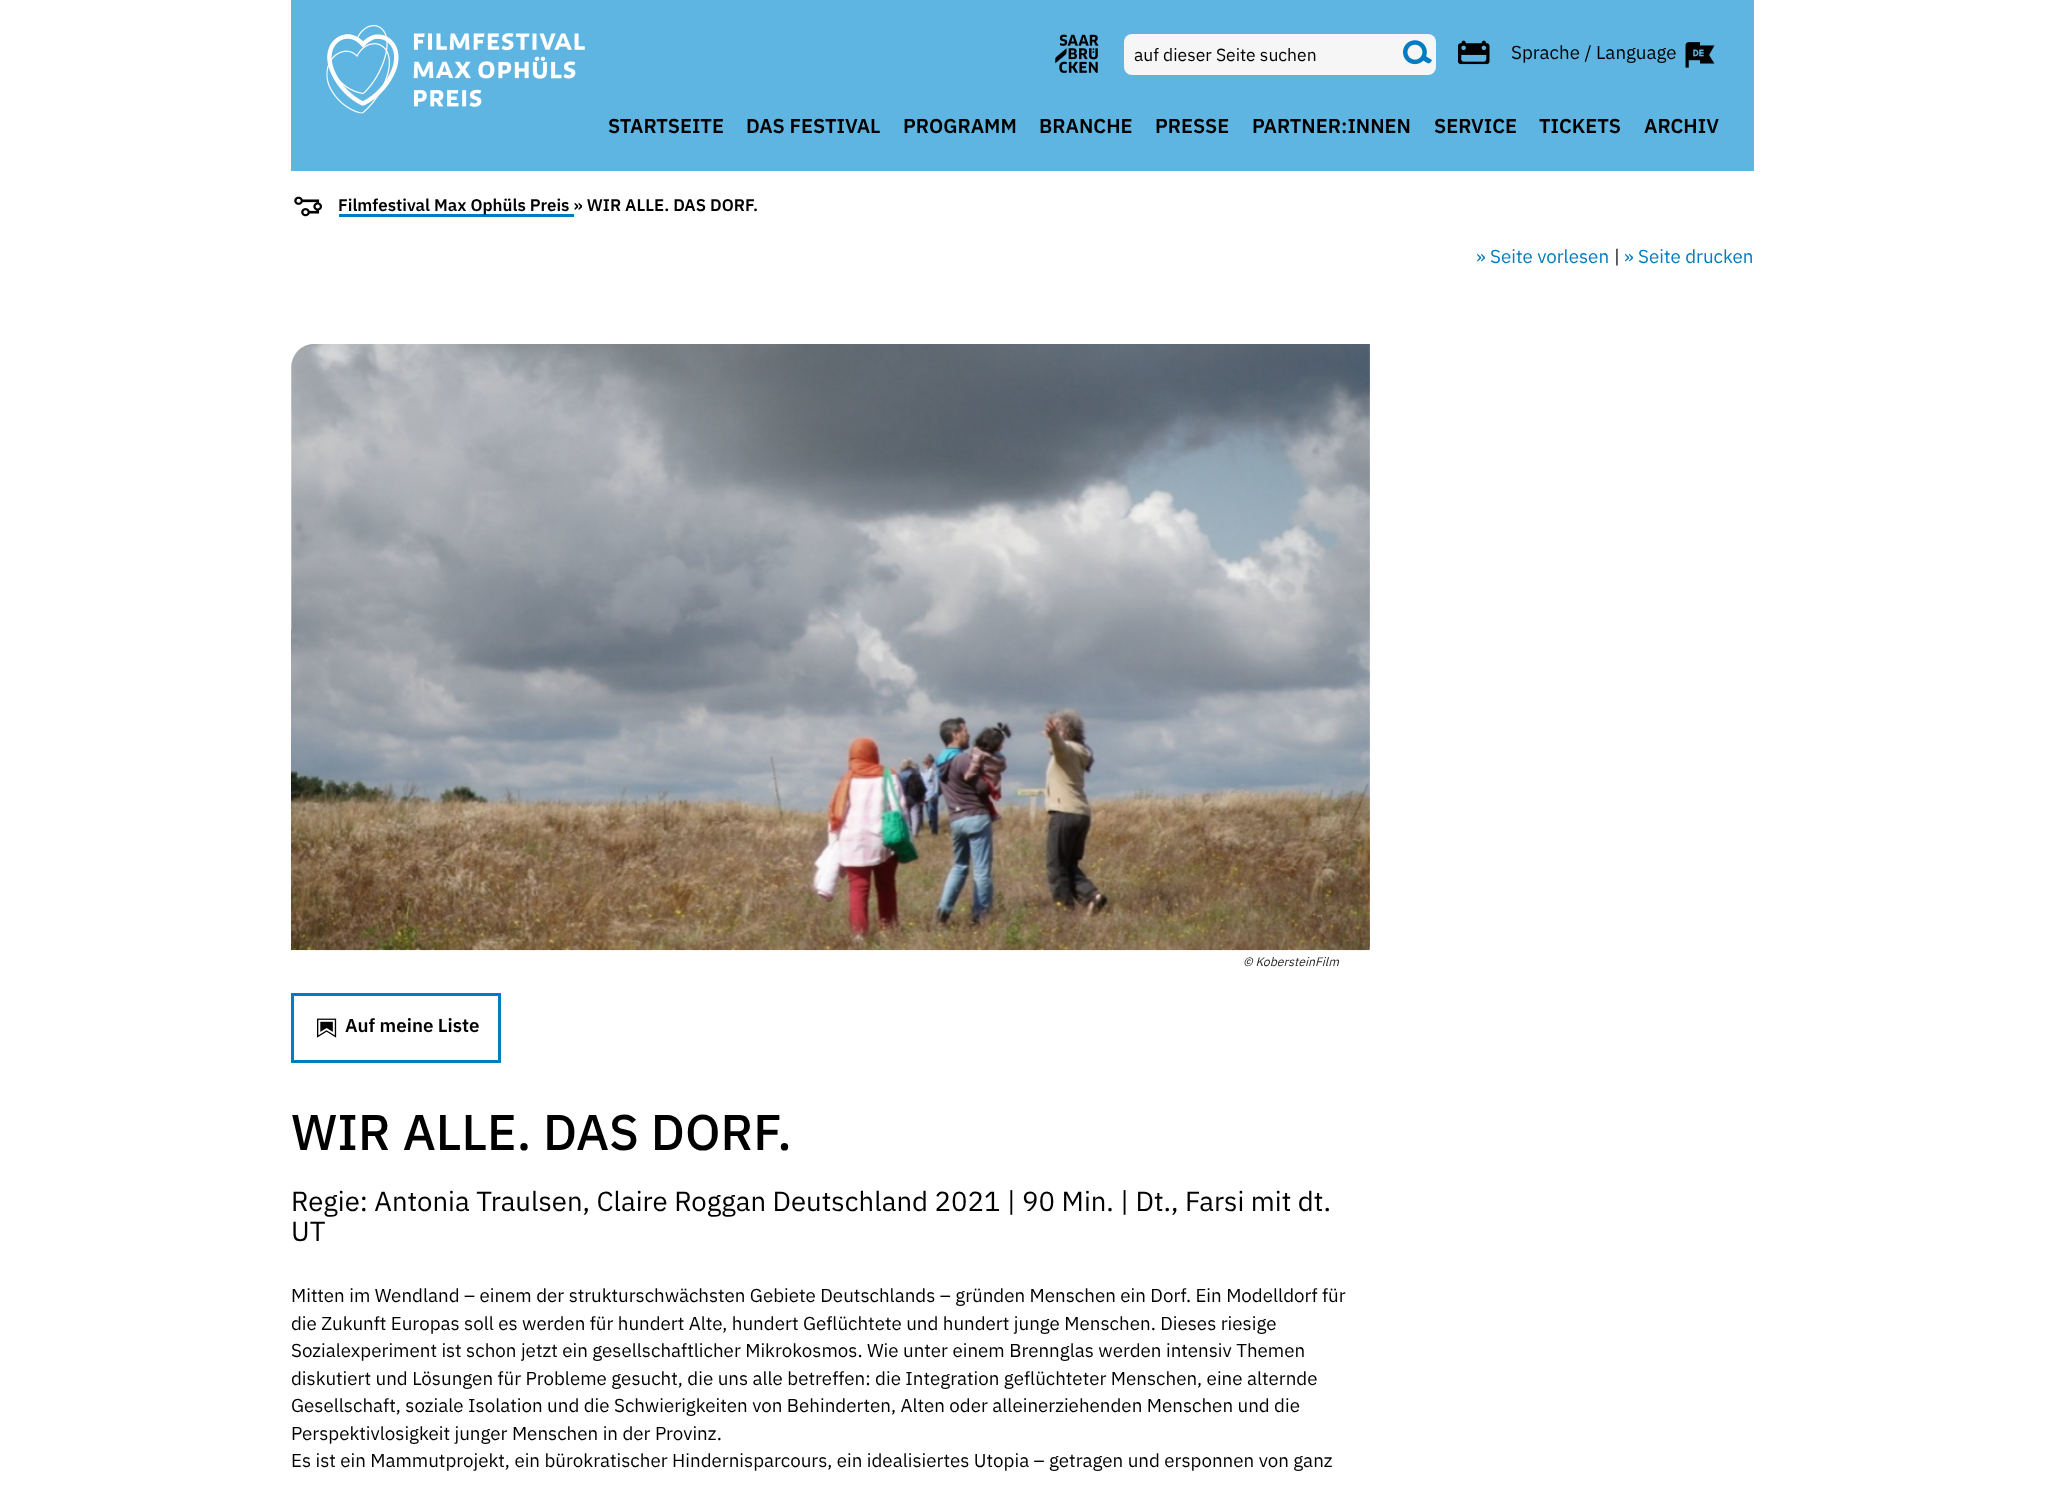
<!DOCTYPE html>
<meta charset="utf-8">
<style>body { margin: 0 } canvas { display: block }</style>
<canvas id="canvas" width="2045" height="1488"></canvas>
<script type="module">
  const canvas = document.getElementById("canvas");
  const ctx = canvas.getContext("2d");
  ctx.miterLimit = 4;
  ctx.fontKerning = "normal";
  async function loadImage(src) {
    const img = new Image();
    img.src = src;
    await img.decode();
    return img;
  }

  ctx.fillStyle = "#ffffff";
  ctx.fillRect(0, 0, 2045, 1488);
  ctx.fillStyle = "#5eb5e2";
  ctx.fillRect(291, 0, 1463, 171);
  ctx.drawImage(await loadImage("img1.png"), 326, 25, 259, 89);
  ctx.drawImage(await loadImage("img2.png"), 1055, 34, 44, 39);
  ctx.fillStyle = "#f6f6f6";
  ctx.beginPath();
  ctx.roundRect(1124, 34, 312, 41, 8);
  ctx.fill();
  ctx.font = "17.5px IBM Plex Sans";
  ctx.fillStyle = "#000000";
  ctx.fillText("auf dieser Seite suchen", 1134, 61);
  ctx.drawImage(await loadImage("img3.png"), 1403, 40, 29, 25);
  ctx.drawImage(await loadImage("img4.png"), 1458, 40, 32, 25);
  ctx.font = "18.75px IBM Plex Sans";
  ctx.fillText("Sprache / Language", 1511, 59);
  ctx.drawImage(await loadImage("img5.png"), 1685, 42, 30, 26);
  ctx.font = "600 20px IBM Plex Sans";
  ctx.fillText("STARTSEITE", 608, 133);
  ctx.fillText("DAS FESTIVAL", 746, 133);
  ctx.fillText("PROGRAMM", 903, 133);
  ctx.fillText("BRANCHE", 1039, 133);
  ctx.fillText("PRESSE", 1155, 133);
  ctx.fillText("PARTNER:INNEN", 1252, 133);
  ctx.fillText("SERVICE", 1434, 133);
  ctx.fillText("TICKETS", 1539, 133);
  ctx.fillText("ARCHIV", 1644, 133);
  ctx.drawImage(await loadImage("img6.png"), 294, 196, 28, 21);
  ctx.fillStyle = "#007cc1";
  ctx.fillRect(339, 214, 235, 3);
  ctx.font = "600 16.9px IBM Plex Sans";
  ctx.fillStyle = "#000000";
  ctx.fillText("Filmfestival Max Ophüls Preis » WIR ALLE. DAS DORF.", 338, 211);
  ctx.font = "18.75px IBM Plex Sans";
  ctx.fillStyle = "#007cc1";
  ctx.fillText("» Seite vorlesen", 1476, 263);
  ctx.fillStyle = "#000000";
  ctx.fillText("|", 1614, 263);
  ctx.fillStyle = "#007cc1";
  ctx.fillText("» Seite drucken", 1624, 263);
  ctx.drawImage(await loadImage("img7.png"), 291, 344, 1079, 607);
  ctx.font = "italic 12.25px IBM Plex Sans";
  ctx.fillStyle = "#282828";
  ctx.fillText("© KobersteinFilm", 1243, 966);
  ctx.strokeStyle = "#007cc1";
  ctx.lineWidth = 3;
  ctx.strokeRect(292.5, 994.5, 207, 67);
  ctx.drawImage(await loadImage("img8.png"), 317, 1018, 20, 20);
  ctx.font = "600 18.75px IBM Plex Sans";
  ctx.fillStyle = "#000000";
  ctx.fillText("Auf meine Liste", 345, 1032);
  ctx.font = "500 50px IBM Plex Sans";
  ctx.fillText("WIR ALLE. DAS DORF.", 291, 1150);
  ctx.font = "27.5px IBM Plex Sans";
  ctx.fillText("Regie: Antonia Traulsen, Claire Roggan Deutschland 2021 | 90 Min. | Dt., Farsi mit dt.", 291, 1211);
  ctx.fillText("UT", 291, 1241);
  ctx.font = "18.75px IBM Plex Sans";
  ctx.fillText("Mitten im Wendland – einem der strukturschwächsten Gebiete Deutschlands – gründen Menschen ein Dorf. Ein Modelldorf für", 291, 1302);
  ctx.fillText("die Zukunft Europas soll es werden für hundert Alte, hundert Geflüchtete und hundert junge Menschen. Dieses riesige", 291, 1330);
  ctx.fillText("Sozialexperiment ist schon jetzt ein gesellschaftlicher Mikrokosmos. Wie unter einem Brennglas werden intensiv Themen", 291, 1357);
  ctx.fillText("diskutiert und Lösungen für Probleme gesucht, die uns alle betreffen: die Integration geflüchteter Menschen, eine alternde", 291, 1385);
  ctx.fillText("Gesellschaft, soziale Isolation und die Schwierigkeiten von Behinderten, Alten oder alleinerziehenden Menschen und die", 291, 1412);
  ctx.fillText("Perspektivlosigkeit junger Menschen in der Provinz.", 291, 1440);
  ctx.fillText("Es ist ein Mammutprojekt, ein bürokratischer Hindernisparcours, ein idealisiertes Utopia – getragen und ersponnen von ganz", 291, 1467);
</script>
